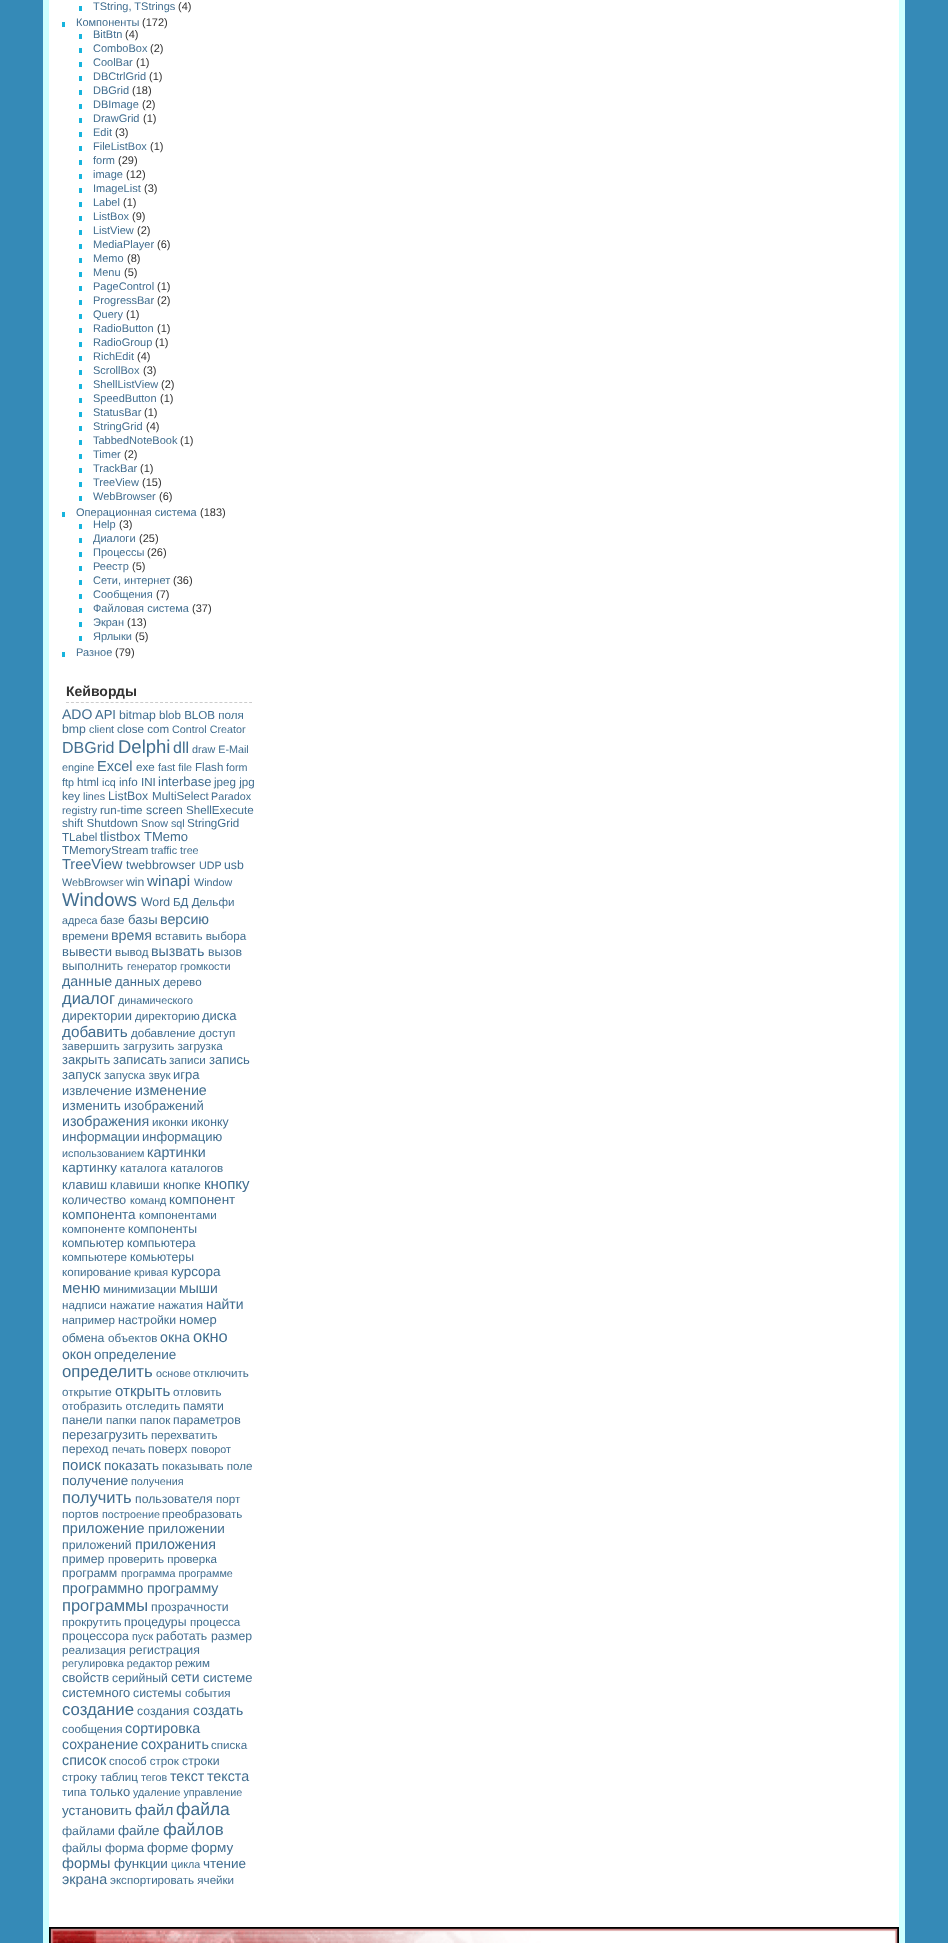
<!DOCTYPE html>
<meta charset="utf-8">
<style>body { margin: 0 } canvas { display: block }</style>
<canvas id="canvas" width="948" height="1943"></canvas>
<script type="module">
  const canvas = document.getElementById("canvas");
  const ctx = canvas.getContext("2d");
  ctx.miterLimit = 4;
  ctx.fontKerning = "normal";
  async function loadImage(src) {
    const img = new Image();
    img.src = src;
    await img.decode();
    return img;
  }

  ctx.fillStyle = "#358ab7";
  ctx.fillRect(0, 0, 948, 1943);
  ctx.fillStyle = "#ffffff";
  ctx.fillRect(49, 0, 850, 1927);
  ctx.strokeStyle = "#ccffff";
  ctx.lineWidth = 6;
  ctx.strokeRect(46, -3, 856, 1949);
  ctx.fillStyle = "#17b4dd";
  ctx.fillRect(79, 6, 3, 5);
  ctx.font = "11px Liberation Sans";
  ctx.fillStyle = "#416e90";
  ctx.fillText("TString, TStrings", 93, 10);
  ctx.fillStyle = "#333333";
  ctx.fillText("(4)", 178, 10);
  ctx.fillStyle = "#17b4dd";
  ctx.fillRect(62, 22, 3, 5);
  ctx.fillStyle = "#416e90";
  ctx.fillText("Компоненты", 76, 26);
  ctx.fillStyle = "#333333";
  ctx.fillText("(172)", 142, 26);
  ctx.fillStyle = "#17b4dd";
  ctx.fillRect(79, 34, 3, 5);
  ctx.fillStyle = "#416e90";
  ctx.fillText("BitBtn", 93, 38);
  ctx.fillStyle = "#333333";
  ctx.fillText("(4)", 125, 38);
  ctx.fillStyle = "#17b4dd";
  ctx.fillRect(79, 48, 3, 5);
  ctx.fillStyle = "#416e90";
  ctx.fillText("ComboBox", 93, 52);
  ctx.fillStyle = "#333333";
  ctx.fillText("(2)", 150, 52);
  ctx.fillStyle = "#17b4dd";
  ctx.fillRect(79, 62, 3, 5);
  ctx.fillStyle = "#416e90";
  ctx.fillText("CoolBar", 93, 66);
  ctx.fillStyle = "#333333";
  ctx.fillText("(1)", 136, 66);
  ctx.fillStyle = "#17b4dd";
  ctx.fillRect(79, 76, 3, 5);
  ctx.fillStyle = "#416e90";
  ctx.fillText("DBCtrlGrid", 93, 80);
  ctx.fillStyle = "#333333";
  ctx.fillText("(1)", 149, 80);
  ctx.fillStyle = "#17b4dd";
  ctx.fillRect(79, 90, 3, 5);
  ctx.fillStyle = "#416e90";
  ctx.fillText("DBGrid", 93, 94);
  ctx.fillStyle = "#333333";
  ctx.fillText("(18)", 132, 94);
  ctx.fillStyle = "#17b4dd";
  ctx.fillRect(79, 104, 3, 5);
  ctx.fillStyle = "#416e90";
  ctx.fillText("DBImage", 93, 108);
  ctx.fillStyle = "#333333";
  ctx.fillText("(2)", 142, 108);
  ctx.fillStyle = "#17b4dd";
  ctx.fillRect(79, 118, 3, 5);
  ctx.fillStyle = "#416e90";
  ctx.fillText("DrawGrid", 93, 122);
  ctx.fillStyle = "#333333";
  ctx.fillText("(1)", 143, 122);
  ctx.fillStyle = "#17b4dd";
  ctx.fillRect(79, 132, 3, 5);
  ctx.fillStyle = "#416e90";
  ctx.fillText("Edit", 93, 136);
  ctx.fillStyle = "#333333";
  ctx.fillText("(3)", 115, 136);
  ctx.fillStyle = "#17b4dd";
  ctx.fillRect(79, 146, 3, 5);
  ctx.fillStyle = "#416e90";
  ctx.fillText("FileListBox", 93, 150);
  ctx.fillStyle = "#333333";
  ctx.fillText("(1)", 150, 150);
  ctx.fillStyle = "#17b4dd";
  ctx.fillRect(79, 160, 3, 5);
  ctx.fillStyle = "#416e90";
  ctx.fillText("form", 93, 164);
  ctx.fillStyle = "#333333";
  ctx.fillText("(29)", 118, 164);
  ctx.fillStyle = "#17b4dd";
  ctx.fillRect(79, 174, 3, 5);
  ctx.fillStyle = "#416e90";
  ctx.fillText("image", 93, 178);
  ctx.fillStyle = "#333333";
  ctx.fillText("(12)", 126, 178);
  ctx.fillStyle = "#17b4dd";
  ctx.fillRect(79, 188, 3, 5);
  ctx.fillStyle = "#416e90";
  ctx.fillText("ImageList", 93, 192);
  ctx.fillStyle = "#333333";
  ctx.fillText("(3)", 144, 192);
  ctx.fillStyle = "#17b4dd";
  ctx.fillRect(79, 202, 3, 5);
  ctx.fillStyle = "#416e90";
  ctx.fillText("Label", 93, 206);
  ctx.fillStyle = "#333333";
  ctx.fillText("(1)", 123, 206);
  ctx.fillStyle = "#17b4dd";
  ctx.fillRect(79, 216, 3, 5);
  ctx.fillStyle = "#416e90";
  ctx.fillText("ListBox", 93, 220);
  ctx.fillStyle = "#333333";
  ctx.fillText("(9)", 132, 220);
  ctx.fillStyle = "#17b4dd";
  ctx.fillRect(79, 230, 3, 5);
  ctx.fillStyle = "#416e90";
  ctx.fillText("ListView", 93, 234);
  ctx.fillStyle = "#333333";
  ctx.fillText("(2)", 137, 234);
  ctx.fillStyle = "#17b4dd";
  ctx.fillRect(79, 244, 3, 5);
  ctx.fillStyle = "#416e90";
  ctx.fillText("MediaPlayer", 93, 248);
  ctx.fillStyle = "#333333";
  ctx.fillText("(6)", 157, 248);
  ctx.fillStyle = "#17b4dd";
  ctx.fillRect(79, 258, 3, 5);
  ctx.fillStyle = "#416e90";
  ctx.fillText("Memo", 93, 262);
  ctx.fillStyle = "#333333";
  ctx.fillText("(8)", 127, 262);
  ctx.fillStyle = "#17b4dd";
  ctx.fillRect(79, 272, 3, 5);
  ctx.fillStyle = "#416e90";
  ctx.fillText("Menu", 93, 276);
  ctx.fillStyle = "#333333";
  ctx.fillText("(5)", 124, 276);
  ctx.fillStyle = "#17b4dd";
  ctx.fillRect(79, 286, 3, 5);
  ctx.fillStyle = "#416e90";
  ctx.fillText("PageControl", 93, 290);
  ctx.fillStyle = "#333333";
  ctx.fillText("(1)", 157, 290);
  ctx.fillStyle = "#17b4dd";
  ctx.fillRect(79, 300, 3, 5);
  ctx.fillStyle = "#416e90";
  ctx.fillText("ProgressBar", 93, 304);
  ctx.fillStyle = "#333333";
  ctx.fillText("(2)", 157, 304);
  ctx.fillStyle = "#17b4dd";
  ctx.fillRect(79, 314, 3, 5);
  ctx.fillStyle = "#416e90";
  ctx.fillText("Query", 93, 318);
  ctx.fillStyle = "#333333";
  ctx.fillText("(1)", 126, 318);
  ctx.fillStyle = "#17b4dd";
  ctx.fillRect(79, 328, 3, 5);
  ctx.fillStyle = "#416e90";
  ctx.fillText("RadioButton", 93, 332);
  ctx.fillStyle = "#333333";
  ctx.fillText("(1)", 157, 332);
  ctx.fillStyle = "#17b4dd";
  ctx.fillRect(79, 342, 3, 5);
  ctx.fillStyle = "#416e90";
  ctx.fillText("RadioGroup", 93, 346);
  ctx.fillStyle = "#333333";
  ctx.fillText("(1)", 155, 346);
  ctx.fillStyle = "#17b4dd";
  ctx.fillRect(79, 356, 3, 5);
  ctx.fillStyle = "#416e90";
  ctx.fillText("RichEdit", 93, 360);
  ctx.fillStyle = "#333333";
  ctx.fillText("(4)", 137, 360);
  ctx.fillStyle = "#17b4dd";
  ctx.fillRect(79, 370, 3, 5);
  ctx.fillStyle = "#416e90";
  ctx.fillText("ScrollBox", 93, 374);
  ctx.fillStyle = "#333333";
  ctx.fillText("(3)", 143, 374);
  ctx.fillStyle = "#17b4dd";
  ctx.fillRect(79, 384, 3, 5);
  ctx.fillStyle = "#416e90";
  ctx.fillText("ShellListView", 93, 388);
  ctx.fillStyle = "#333333";
  ctx.fillText("(2)", 161, 388);
  ctx.fillStyle = "#17b4dd";
  ctx.fillRect(79, 398, 3, 5);
  ctx.fillStyle = "#416e90";
  ctx.fillText("SpeedButton", 93, 402);
  ctx.fillStyle = "#333333";
  ctx.fillText("(1)", 160, 402);
  ctx.fillStyle = "#17b4dd";
  ctx.fillRect(79, 412, 3, 5);
  ctx.fillStyle = "#416e90";
  ctx.fillText("StatusBar", 93, 416);
  ctx.fillStyle = "#333333";
  ctx.fillText("(1)", 144, 416);
  ctx.fillStyle = "#17b4dd";
  ctx.fillRect(79, 426, 3, 5);
  ctx.fillStyle = "#416e90";
  ctx.fillText("StringGrid", 93, 430);
  ctx.fillStyle = "#333333";
  ctx.fillText("(4)", 146, 430);
  ctx.fillStyle = "#17b4dd";
  ctx.fillRect(79, 440, 3, 5);
  ctx.fillStyle = "#416e90";
  ctx.fillText("TabbedNoteBook", 93, 444);
  ctx.fillStyle = "#333333";
  ctx.fillText("(1)", 180, 444);
  ctx.fillStyle = "#17b4dd";
  ctx.fillRect(79, 454, 3, 5);
  ctx.fillStyle = "#416e90";
  ctx.fillText("Timer", 93, 458);
  ctx.fillStyle = "#333333";
  ctx.fillText("(2)", 124, 458);
  ctx.fillStyle = "#17b4dd";
  ctx.fillRect(79, 468, 3, 5);
  ctx.fillStyle = "#416e90";
  ctx.fillText("TrackBar", 93, 472);
  ctx.fillStyle = "#333333";
  ctx.fillText("(1)", 140, 472);
  ctx.fillStyle = "#17b4dd";
  ctx.fillRect(79, 482, 3, 5);
  ctx.fillStyle = "#416e90";
  ctx.fillText("TreeView", 93, 486);
  ctx.fillStyle = "#333333";
  ctx.fillText("(15)", 142, 486);
  ctx.fillStyle = "#17b4dd";
  ctx.fillRect(79, 496, 3, 5);
  ctx.fillStyle = "#416e90";
  ctx.fillText("WebBrowser", 93, 500);
  ctx.fillStyle = "#333333";
  ctx.fillText("(6)", 159, 500);
  ctx.fillStyle = "#17b4dd";
  ctx.fillRect(62, 512, 3, 5);
  ctx.fillStyle = "#416e90";
  ctx.fillText("Операционная система", 76, 516);
  ctx.fillStyle = "#333333";
  ctx.fillText("(183)", 200, 516);
  ctx.fillStyle = "#17b4dd";
  ctx.fillRect(79, 524, 3, 5);
  ctx.fillStyle = "#416e90";
  ctx.fillText("Help", 93, 528);
  ctx.fillStyle = "#333333";
  ctx.fillText("(3)", 119, 528);
  ctx.fillStyle = "#17b4dd";
  ctx.fillRect(79, 538, 3, 5);
  ctx.fillStyle = "#416e90";
  ctx.fillText("Диалоги", 93, 542);
  ctx.fillStyle = "#333333";
  ctx.fillText("(25)", 139, 542);
  ctx.fillStyle = "#17b4dd";
  ctx.fillRect(79, 552, 3, 5);
  ctx.fillStyle = "#416e90";
  ctx.fillText("Процессы", 93, 556);
  ctx.fillStyle = "#333333";
  ctx.fillText("(26)", 147, 556);
  ctx.fillStyle = "#17b4dd";
  ctx.fillRect(79, 566, 3, 5);
  ctx.fillStyle = "#416e90";
  ctx.fillText("Реестр", 93, 570);
  ctx.fillStyle = "#333333";
  ctx.fillText("(5)", 132, 570);
  ctx.fillStyle = "#17b4dd";
  ctx.fillRect(79, 580, 3, 5);
  ctx.fillStyle = "#416e90";
  ctx.fillText("Сети, интернет", 93, 584);
  ctx.fillStyle = "#333333";
  ctx.fillText("(36)", 173, 584);
  ctx.fillStyle = "#17b4dd";
  ctx.fillRect(79, 594, 3, 5);
  ctx.fillStyle = "#416e90";
  ctx.fillText("Сообщения", 93, 598);
  ctx.fillStyle = "#333333";
  ctx.fillText("(7)", 156, 598);
  ctx.fillStyle = "#17b4dd";
  ctx.fillRect(79, 608, 3, 5);
  ctx.fillStyle = "#416e90";
  ctx.fillText("Файловая система", 93, 612);
  ctx.fillStyle = "#333333";
  ctx.fillText("(37)", 192, 612);
  ctx.fillStyle = "#17b4dd";
  ctx.fillRect(79, 622, 3, 5);
  ctx.fillStyle = "#416e90";
  ctx.fillText("Экран", 93, 626);
  ctx.fillStyle = "#333333";
  ctx.fillText("(13)", 127, 626);
  ctx.fillStyle = "#17b4dd";
  ctx.fillRect(79, 636, 3, 5);
  ctx.fillStyle = "#416e90";
  ctx.fillText("Ярлыки", 93, 640);
  ctx.fillStyle = "#333333";
  ctx.fillText("(5)", 135, 640);
  ctx.fillStyle = "#17b4dd";
  ctx.fillRect(62, 652, 3, 5);
  ctx.fillStyle = "#416e90";
  ctx.fillText("Разное", 76, 656);
  ctx.fillStyle = "#333333";
  ctx.fillText("(79)", 115, 656);
  ctx.beginPath();
  ctx.moveTo(66, 702.5);
  ctx.lineTo(252, 702.5);
  ctx.strokeStyle = "#cccccc";
  ctx.lineWidth = 1;
  ctx.setLineDash([3, 1.95]);
  ctx.stroke();
  ctx.font = "bold 14px Liberation Sans";
  ctx.fillText("Кейворды", 66, 696);
  ctx.font = "14px Liberation Sans";
  ctx.fillStyle = "#416e90";
  ctx.fillText("ADO", 62, 719);
  ctx.font = "13px Liberation Sans";
  ctx.fillText("API", 95, 719);
  ctx.font = "12.25px Liberation Sans";
  ctx.fillText("bitmap", 119, 719);
  ctx.font = "11.6px Liberation Sans";
  ctx.fillText("blob BLOB поля", 159, 719);
  ctx.font = "12.25px Liberation Sans";
  ctx.fillText("bmp", 62, 733);
  ctx.font = "10.75px Liberation Sans";
  ctx.fillText("client", 89, 733);
  ctx.font = "11.6px Liberation Sans";
  ctx.fillText("close com", 117, 733);
  ctx.font = "10.75px Liberation Sans";
  ctx.fillText("Control Creator", 172, 733);
  ctx.font = "16px Liberation Sans";
  ctx.fillText("DBGrid", 62, 753);
  ctx.font = "18.5px Liberation Sans";
  ctx.fillText("Delphi", 118, 753);
  ctx.font = "16px Liberation Sans";
  ctx.fillText("dll", 173, 753);
  ctx.font = "10.75px Liberation Sans";
  ctx.fillText("draw E-Mail", 192, 753);
  ctx.fillText("engine", 62, 771);
  ctx.font = "14.5px Liberation Sans";
  ctx.fillText("Excel", 97, 771);
  ctx.font = "11.6px Liberation Sans";
  ctx.fillText("exe", 136, 771);
  ctx.font = "10.75px Liberation Sans";
  ctx.fillText("fast file", 158, 771);
  ctx.font = "11.6px Liberation Sans";
  ctx.fillText("Flash", 195, 771);
  ctx.font = "10.75px Liberation Sans";
  ctx.fillText("form", 226, 771);
  ctx.fillText("ftp", 62, 786);
  ctx.font = "11.6px Liberation Sans";
  ctx.fillText("html", 77, 786);
  ctx.font = "10.75px Liberation Sans";
  ctx.fillText("icq", 102, 786);
  ctx.font = "11.6px Liberation Sans";
  ctx.fillText("info INI", 119, 786);
  ctx.font = "13px Liberation Sans";
  ctx.fillText("interbase", 158, 786);
  ctx.font = "11.6px Liberation Sans";
  ctx.fillText("jpeg jpg", 214, 786);
  ctx.fillText("key", 62, 800);
  ctx.font = "10.75px Liberation Sans";
  ctx.fillText("lines", 83, 800);
  ctx.font = "12.25px Liberation Sans";
  ctx.fillText("ListBox", 108, 800);
  ctx.font = "11.6px Liberation Sans";
  ctx.fillText("MultiSelect", 152, 800);
  ctx.font = "10.75px Liberation Sans";
  ctx.fillText("Paradox", 211, 800);
  ctx.fillText("registry", 62, 814);
  ctx.font = "11.6px Liberation Sans";
  ctx.fillText("run-time", 100, 814);
  ctx.font = "12.25px Liberation Sans";
  ctx.fillText("screen", 146, 814);
  ctx.font = "11.6px Liberation Sans";
  ctx.fillText("ShellExecute", 186, 814);
  ctx.fillText("shift Shutdown", 62, 827);
  ctx.font = "10.75px Liberation Sans";
  ctx.fillText("Snow sql", 141, 827);
  ctx.font = "11.6px Liberation Sans";
  ctx.fillText("StringGrid", 187, 827);
  ctx.fillText("TLabel", 62, 841);
  ctx.font = "13px Liberation Sans";
  ctx.fillText("tlistbox", 100, 841);
  ctx.fillText("TMemo", 144, 841);
  ctx.font = "11.6px Liberation Sans";
  ctx.fillText("TMemoryStream", 62, 854);
  ctx.font = "10.75px Liberation Sans";
  ctx.fillText("traffic tree", 151, 854);
  ctx.font = "14.5px Liberation Sans";
  ctx.fillText("TreeView", 62, 869);
  ctx.font = "12.25px Liberation Sans";
  ctx.fillText("twebbrowser", 126, 869);
  ctx.font = "10.75px Liberation Sans";
  ctx.fillText("UDP", 199, 869);
  ctx.font = "12.25px Liberation Sans";
  ctx.fillText("usb", 224, 869);
  ctx.font = "10.75px Liberation Sans";
  ctx.fillText("WebBrowser", 62, 886);
  ctx.font = "12.25px Liberation Sans";
  ctx.fillText("win", 126, 886);
  ctx.font = "15.25px Liberation Sans";
  ctx.fillText("winapi", 147, 886);
  ctx.font = "10.75px Liberation Sans";
  ctx.fillText("Window", 194, 886);
  ctx.font = "18.5px Liberation Sans";
  ctx.fillText("Windows", 62, 906);
  ctx.font = "12.25px Liberation Sans";
  ctx.fillText("Word", 141, 906);
  ctx.font = "11.6px Liberation Sans";
  ctx.fillText("БД Дельфи", 173, 906);
  ctx.font = "10.75px Liberation Sans";
  ctx.fillText("адреса", 62, 924);
  ctx.font = "11.6px Liberation Sans";
  ctx.fillText("базе", 100, 924);
  ctx.font = "13px Liberation Sans";
  ctx.fillText("базы", 128, 924);
  ctx.font = "14.25px Liberation Sans";
  ctx.fillText("версию", 160, 924);
  ctx.font = "11.6px Liberation Sans";
  ctx.fillText("времени", 62, 940);
  ctx.font = "14.25px Liberation Sans";
  ctx.fillText("время", 111, 940);
  ctx.font = "11.6px Liberation Sans";
  ctx.fillText("вставить выбора", 155, 940);
  ctx.font = "13px Liberation Sans";
  ctx.fillText("вывести", 62, 956);
  ctx.font = "11.6px Liberation Sans";
  ctx.fillText("вывод", 115, 956);
  ctx.font = "14.25px Liberation Sans";
  ctx.fillText("вызвать", 151, 956);
  ctx.font = "12.25px Liberation Sans";
  ctx.fillText("вызов", 208, 956);
  ctx.fillText("выполнить", 62, 970);
  ctx.font = "10.75px Liberation Sans";
  ctx.fillText("генератор громкости", 127, 970);
  ctx.font = "14.25px Liberation Sans";
  ctx.fillText("данные", 62, 986);
  ctx.font = "13px Liberation Sans";
  ctx.fillText("данных", 115, 986);
  ctx.font = "11.6px Liberation Sans";
  ctx.fillText("дерево", 163, 986);
  ctx.font = "16.5px Liberation Sans";
  ctx.fillText("диалог", 62, 1004);
  ctx.font = "10.75px Liberation Sans";
  ctx.fillText("динамического", 118, 1004);
  ctx.font = "13px Liberation Sans";
  ctx.fillText("директории", 62, 1020);
  ctx.font = "11.6px Liberation Sans";
  ctx.fillText("директорию", 135, 1020);
  ctx.font = "13px Liberation Sans";
  ctx.fillText("диска", 202, 1020);
  ctx.font = "15.25px Liberation Sans";
  ctx.fillText("добавить", 62, 1037);
  ctx.font = "11.6px Liberation Sans";
  ctx.fillText("добавление доступ", 131, 1037);
  ctx.fillText("завершить загрузить загрузка", 62, 1050);
  ctx.font = "13px Liberation Sans";
  ctx.fillText("закрыть", 62, 1064);
  ctx.fillText("записать", 113, 1064);
  ctx.font = "11.6px Liberation Sans";
  ctx.fillText("записи", 169, 1064);
  ctx.font = "13px Liberation Sans";
  ctx.fillText("запись", 209, 1064);
  ctx.fillText("запуск", 62, 1079);
  ctx.font = "11.6px Liberation Sans";
  ctx.fillText("запуска звук", 104, 1079);
  ctx.font = "13px Liberation Sans";
  ctx.fillText("игра", 173, 1079);
  ctx.fillText("извлечение", 62, 1095);
  ctx.font = "14.25px Liberation Sans";
  ctx.fillText("изменение", 135, 1095);
  ctx.font = "13.5px Liberation Sans";
  ctx.fillText("изменить", 62, 1110);
  ctx.font = "13px Liberation Sans";
  ctx.fillText("изображений", 124, 1110);
  ctx.font = "14.25px Liberation Sans";
  ctx.fillText("изображения", 62, 1126);
  ctx.font = "11.6px Liberation Sans";
  ctx.fillText("иконки", 152, 1126);
  ctx.font = "12.25px Liberation Sans";
  ctx.fillText("иконку", 191, 1126);
  ctx.font = "13px Liberation Sans";
  ctx.fillText("информации", 62, 1141);
  ctx.fillText("информацию", 142, 1141);
  ctx.font = "10.75px Liberation Sans";
  ctx.fillText("использованием", 62, 1157);
  ctx.font = "14.25px Liberation Sans";
  ctx.fillText("картинки", 147, 1157);
  ctx.font = "13.5px Liberation Sans";
  ctx.fillText("картинку", 62, 1172);
  ctx.font = "11.6px Liberation Sans";
  ctx.fillText("каталога каталогов", 120, 1172);
  ctx.font = "13px Liberation Sans";
  ctx.fillText("клавиш", 62, 1189);
  ctx.font = "12.25px Liberation Sans";
  ctx.fillText("клавиши", 110, 1189);
  ctx.fillText("кнопке", 163, 1189);
  ctx.font = "15px Liberation Sans";
  ctx.fillText("кнопку", 204, 1189);
  ctx.font = "12.25px Liberation Sans";
  ctx.fillText("количество", 62, 1204);
  ctx.font = "10.75px Liberation Sans";
  ctx.fillText("команд", 130, 1204);
  ctx.font = "13.5px Liberation Sans";
  ctx.fillText("компонент", 169, 1204);
  ctx.fillText("компонента", 62, 1219);
  ctx.font = "11.6px Liberation Sans";
  ctx.fillText("компонентами", 139, 1219);
  ctx.fillText("компоненте", 62, 1233);
  ctx.font = "12.25px Liberation Sans";
  ctx.fillText("компоненты", 128, 1233);
  ctx.fillText("компьютер", 62, 1247);
  ctx.fillText("компьютера", 127, 1247);
  ctx.font = "11.6px Liberation Sans";
  ctx.fillText("компьютере", 62, 1261);
  ctx.font = "12.25px Liberation Sans";
  ctx.fillText("комьютеры", 130, 1261);
  ctx.font = "11.6px Liberation Sans";
  ctx.fillText("копирование", 62, 1276);
  ctx.font = "10.75px Liberation Sans";
  ctx.fillText("кривая", 134, 1276);
  ctx.font = "13.5px Liberation Sans";
  ctx.fillText("курсора", 171, 1276);
  ctx.font = "15px Liberation Sans";
  ctx.fillText("меню", 62, 1293);
  ctx.font = "11.6px Liberation Sans";
  ctx.fillText("минимизации", 103, 1293);
  ctx.font = "14px Liberation Sans";
  ctx.fillText("мыши", 179, 1293);
  ctx.font = "11.6px Liberation Sans";
  ctx.fillText("надписи нажатие нажатия", 62, 1309);
  ctx.font = "14px Liberation Sans";
  ctx.fillText("найти", 206, 1309);
  ctx.font = "11.6px Liberation Sans";
  ctx.fillText("например", 62, 1324);
  ctx.font = "12.25px Liberation Sans";
  ctx.fillText("настройки", 118, 1324);
  ctx.font = "13px Liberation Sans";
  ctx.fillText("номер", 179, 1324);
  ctx.font = "12.25px Liberation Sans";
  ctx.fillText("обмена", 62, 1342);
  ctx.font = "11.6px Liberation Sans";
  ctx.fillText("объектов", 108, 1342);
  ctx.font = "14.25px Liberation Sans";
  ctx.fillText("окна", 160, 1342);
  ctx.font = "16.5px Liberation Sans";
  ctx.fillText("окно", 193, 1342);
  ctx.font = "14px Liberation Sans";
  ctx.fillText("окон", 62, 1359);
  ctx.font = "13.5px Liberation Sans";
  ctx.fillText("определение", 94, 1359);
  ctx.font = "16.75px Liberation Sans";
  ctx.fillText("определить", 62, 1377);
  ctx.font = "10.75px Liberation Sans";
  ctx.fillText("основе", 156, 1377);
  ctx.font = "11.6px Liberation Sans";
  ctx.fillText("отключить", 193, 1377);
  ctx.fillText("открытие", 62, 1396);
  ctx.font = "15px Liberation Sans";
  ctx.fillText("открыть", 115, 1396);
  ctx.font = "11.6px Liberation Sans";
  ctx.fillText("отловить", 173, 1396);
  ctx.fillText("отобразить отследить", 62, 1410);
  ctx.font = "12.25px Liberation Sans";
  ctx.fillText("памяти", 183, 1410);
  ctx.fillText("панели", 62, 1424);
  ctx.font = "11.6px Liberation Sans";
  ctx.fillText("папки папок", 106, 1424);
  ctx.font = "12.25px Liberation Sans";
  ctx.fillText("параметров", 173, 1424);
  ctx.font = "13px Liberation Sans";
  ctx.fillText("перезагрузить", 62, 1439);
  ctx.font = "11.6px Liberation Sans";
  ctx.fillText("перехватить", 151, 1439);
  ctx.font = "12.25px Liberation Sans";
  ctx.fillText("переход", 62, 1453);
  ctx.font = "10.75px Liberation Sans";
  ctx.fillText("печать", 112, 1453);
  ctx.font = "12.25px Liberation Sans";
  ctx.fillText("поверх", 148, 1453);
  ctx.font = "10.75px Liberation Sans";
  ctx.fillText("поворот", 191, 1453);
  ctx.font = "15px Liberation Sans";
  ctx.fillText("поиск", 62, 1470);
  ctx.font = "13.5px Liberation Sans";
  ctx.fillText("показать", 104, 1470);
  ctx.font = "11.6px Liberation Sans";
  ctx.fillText("показывать поле", 162, 1470);
  ctx.font = "13.5px Liberation Sans";
  ctx.fillText("получение", 62, 1485);
  ctx.font = "10.75px Liberation Sans";
  ctx.fillText("получения", 131, 1485);
  ctx.font = "16.5px Liberation Sans";
  ctx.fillText("получить", 62, 1503);
  ctx.font = "12.25px Liberation Sans";
  ctx.fillText("пользователя", 135, 1503);
  ctx.font = "11.6px Liberation Sans";
  ctx.fillText("порт", 216, 1503);
  ctx.fillText("портов", 62, 1518);
  ctx.font = "10.75px Liberation Sans";
  ctx.fillText("построение", 102, 1518);
  ctx.font = "11.6px Liberation Sans";
  ctx.fillText("преобразовать", 162, 1518);
  ctx.font = "14.5px Liberation Sans";
  ctx.fillText("приложение", 62, 1533);
  ctx.font = "13.5px Liberation Sans";
  ctx.fillText("приложении", 148, 1533);
  ctx.font = "12.25px Liberation Sans";
  ctx.fillText("приложений", 62, 1549);
  ctx.font = "14.25px Liberation Sans";
  ctx.fillText("приложения", 135, 1549);
  ctx.font = "12.25px Liberation Sans";
  ctx.fillText("пример", 62, 1563);
  ctx.font = "11.6px Liberation Sans";
  ctx.fillText("проверить проверка", 108, 1563);
  ctx.font = "12.25px Liberation Sans";
  ctx.fillText("программ", 62, 1577);
  ctx.font = "10.75px Liberation Sans";
  ctx.fillText("программа программе", 121, 1577);
  ctx.font = "14.5px Liberation Sans";
  ctx.fillText("программно", 62, 1593);
  ctx.font = "14.25px Liberation Sans";
  ctx.fillText("программу", 147, 1593);
  ctx.font = "16.5px Liberation Sans";
  ctx.fillText("программы", 62, 1611);
  ctx.font = "12.25px Liberation Sans";
  ctx.fillText("прозрачности", 151, 1611);
  ctx.font = "11.6px Liberation Sans";
  ctx.fillText("прокрутить", 62, 1626);
  ctx.font = "12.25px Liberation Sans";
  ctx.fillText("процедуры", 124, 1626);
  ctx.font = "11.6px Liberation Sans";
  ctx.fillText("процесса", 190, 1626);
  ctx.font = "12.25px Liberation Sans";
  ctx.fillText("процессора", 62, 1640);
  ctx.font = "10.75px Liberation Sans";
  ctx.fillText("пуск", 132, 1640);
  ctx.font = "12.25px Liberation Sans";
  ctx.fillText("работать", 156, 1640);
  ctx.fillText("размер", 211, 1640);
  ctx.font = "11.6px Liberation Sans";
  ctx.fillText("реализация", 62, 1654);
  ctx.font = "12.25px Liberation Sans";
  ctx.fillText("регистрация", 129, 1654);
  ctx.font = "10.75px Liberation Sans";
  ctx.fillText("регулировка редактор", 62, 1667);
  ctx.font = "11.6px Liberation Sans";
  ctx.fillText("режим", 175, 1667);
  ctx.font = "13px Liberation Sans";
  ctx.fillText("свойств", 62, 1682);
  ctx.font = "12.25px Liberation Sans";
  ctx.fillText("серийный", 112, 1682);
  ctx.font = "14px Liberation Sans";
  ctx.fillText("сети", 171, 1682);
  ctx.font = "13px Liberation Sans";
  ctx.fillText("системе", 203, 1682);
  ctx.fillText("системного", 62, 1697);
  ctx.font = "12.25px Liberation Sans";
  ctx.fillText("системы", 133, 1697);
  ctx.font = "11.6px Liberation Sans";
  ctx.fillText("события", 185, 1697);
  ctx.font = "16.75px Liberation Sans";
  ctx.fillText("создание", 62, 1715);
  ctx.font = "12.25px Liberation Sans";
  ctx.fillText("создания", 137, 1715);
  ctx.font = "14px Liberation Sans";
  ctx.fillText("создать", 193, 1715);
  ctx.font = "11.6px Liberation Sans";
  ctx.fillText("сообщения", 62, 1733);
  ctx.font = "14.25px Liberation Sans";
  ctx.fillText("сортировка", 125, 1733);
  ctx.font = "14px Liberation Sans";
  ctx.fillText("сохранение", 62, 1749);
  ctx.font = "14.25px Liberation Sans";
  ctx.fillText("сохранить", 141, 1749);
  ctx.font = "11.6px Liberation Sans";
  ctx.fillText("списка", 211, 1749);
  ctx.font = "14.25px Liberation Sans";
  ctx.fillText("список", 62, 1765);
  ctx.font = "11.6px Liberation Sans";
  ctx.fillText("способ строк", 109, 1765);
  ctx.font = "12.25px Liberation Sans";
  ctx.fillText("строки", 182, 1765);
  ctx.font = "11.6px Liberation Sans";
  ctx.fillText("строку таблиц", 62, 1781);
  ctx.font = "10.75px Liberation Sans";
  ctx.fillText("тегов", 141, 1781);
  ctx.font = "14.25px Liberation Sans";
  ctx.fillText("текст", 170, 1781);
  ctx.fillText("текста", 207, 1781);
  ctx.font = "11.6px Liberation Sans";
  ctx.fillText("типа", 62, 1796);
  ctx.font = "13px Liberation Sans";
  ctx.fillText("только", 90, 1796);
  ctx.font = "10.75px Liberation Sans";
  ctx.fillText("удаление управление", 133, 1796);
  ctx.font = "13.5px Liberation Sans";
  ctx.fillText("установить", 62, 1815);
  ctx.font = "15.25px Liberation Sans";
  ctx.fillText("файл", 135, 1815);
  ctx.font = "17.5px Liberation Sans";
  ctx.fillText("файла", 176, 1815);
  ctx.font = "12.25px Liberation Sans";
  ctx.fillText("файлами", 62, 1835);
  ctx.font = "13.5px Liberation Sans";
  ctx.fillText("файле", 118, 1835);
  ctx.font = "16.75px Liberation Sans";
  ctx.fillText("файлов", 163, 1835);
  ctx.font = "12.25px Liberation Sans";
  ctx.fillText("файлы", 62, 1852);
  ctx.fillText("форма", 105, 1852);
  ctx.font = "13px Liberation Sans";
  ctx.fillText("форме", 147, 1852);
  ctx.font = "13.5px Liberation Sans";
  ctx.fillText("форму", 191, 1852);
  ctx.font = "14.5px Liberation Sans";
  ctx.fillText("формы", 62, 1868);
  ctx.font = "13.5px Liberation Sans";
  ctx.fillText("функции", 114, 1868);
  ctx.font = "10.75px Liberation Sans";
  ctx.fillText("цикла", 171, 1868);
  ctx.font = "13.5px Liberation Sans";
  ctx.fillText("чтение", 203, 1868);
  ctx.font = "14.25px Liberation Sans";
  ctx.fillText("экрана", 62, 1884);
  ctx.font = "11.6px Liberation Sans";
  ctx.fillText("экспортировать ячейки", 110, 1884);
  ctx.drawImage(await loadImage("img1.png"), 49, 1927, 850, 16);
</script>
